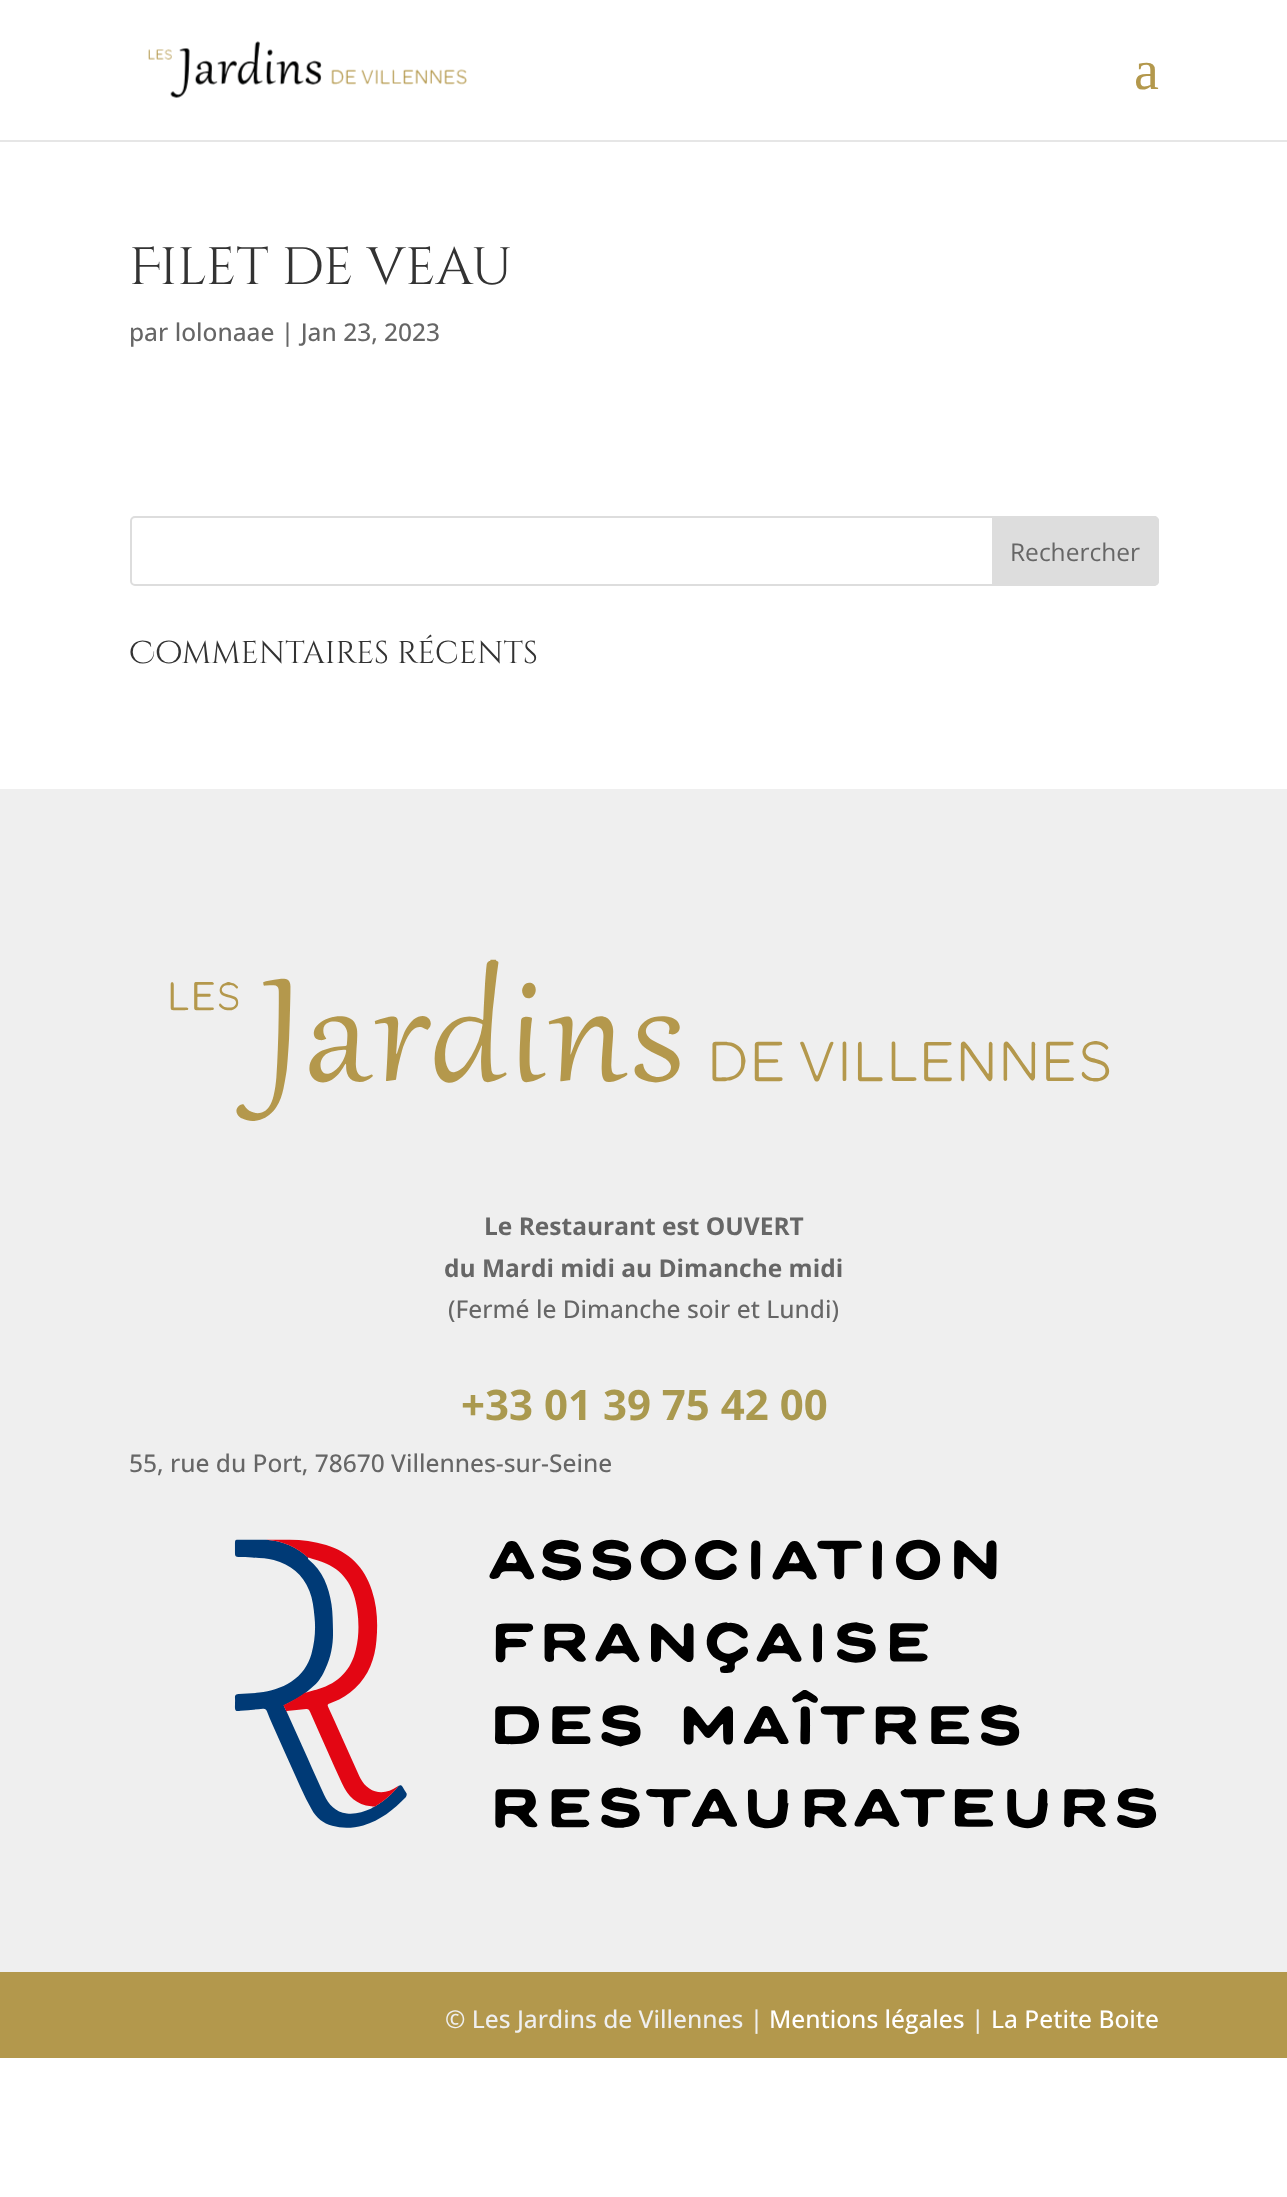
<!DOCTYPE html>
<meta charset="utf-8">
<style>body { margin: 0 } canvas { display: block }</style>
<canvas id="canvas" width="1287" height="2197"></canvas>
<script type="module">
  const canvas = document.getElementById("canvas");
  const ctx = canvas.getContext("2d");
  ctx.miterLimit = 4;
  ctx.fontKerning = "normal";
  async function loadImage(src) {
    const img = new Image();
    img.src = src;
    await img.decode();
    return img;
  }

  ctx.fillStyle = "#ffffff";
  ctx.fillRect(0, 0, 1287, 2197);
  ctx.fillStyle = "#e6e6e6";
  ctx.fillRect(0, 140, 1287, 2);
  ctx.drawImage(await loadImage("img1.png"), 148, 41, 319, 57);
  ctx.font = "56px Liberation Serif";
  ctx.fillStyle = "#b3984c";
  ctx.fillText("a", 1134, 89);
  ctx.font = "52.5px Cinzel Decorative";
  ctx.fillStyle = "#333333";
  ctx.fillText("Filet de veau", 129, 284);
  ctx.font = "500 24.5px Open Sans";
  ctx.fillStyle = "#666666";
  ctx.fillText("par lolonaae | Jan 23, 2023", 129, 341);
  ctx.beginPath();
  ctx.roundRect(131, 517, 1027, 68, 4);
  ctx.strokeStyle = "#dddddd";
  ctx.lineWidth = 2;
  ctx.stroke();
  ctx.fillStyle = "#dddddd";
  ctx.beginPath();
  ctx.roundRect(993, 517, 165, 68, [0, 4, 4, 0]);
  ctx.fill();
  ctx.stroke();
  ctx.font = "24.5px Open Sans";
  ctx.fillStyle = "#666666";
  ctx.fillText("Rechercher", 1010, 561);
  ctx.font = "31.5px Cinzel Decorative";
  ctx.fillStyle = "#333333";
  ctx.fillText("Commentaires récents", 129, 663);
  ctx.fillStyle = "#efefef";
  ctx.fillRect(0, 789, 1287, 1183);
  ctx.drawImage(await loadImage("img2.png"), 170, 959, 940, 162);
  ctx.font = "bold 24.5px Open Sans";
  ctx.fillStyle = "#666666";
  ctx.fillText("Le Restaurant est OUVERT", 484, 1235);
  ctx.fillText("du Mardi midi au Dimanche midi", 444, 1277);
  ctx.font = "500 24.5px Open Sans";
  ctx.fillText("(Fermé le Dimanche soir et Lundi)", 448, 1318);
  ctx.font = "bold 42px Open Sans";
  ctx.fillStyle = "#aa994f";
  ctx.fillText("+33 01 39 75 42 00", 461, 1420);
  ctx.font = "500 24.5px Open Sans";
  ctx.fillStyle = "#666666";
  ctx.fillText("55, rue du Port, 78670 Villennes-sur-Seine", 129, 1472);
  ctx.drawImage(await loadImage("img3.png"), 234, 1539, 923, 290);
  ctx.fillStyle = "#b3984c";
  ctx.fillRect(0, 1972, 1287, 86);
  ctx.fillStyle = "#efefef";
  ctx.fillText("© Les Jardins de Villennes |", 445, 2028);
  ctx.fillStyle = "#ffffff";
  ctx.fillText("Mentions légales", 769, 2028);
  ctx.fillStyle = "#efefef";
  ctx.fillText("|", 971, 2028);
  ctx.fillStyle = "#ffffff";
  ctx.fillText("La Petite Boite", 991, 2028);
</script>
